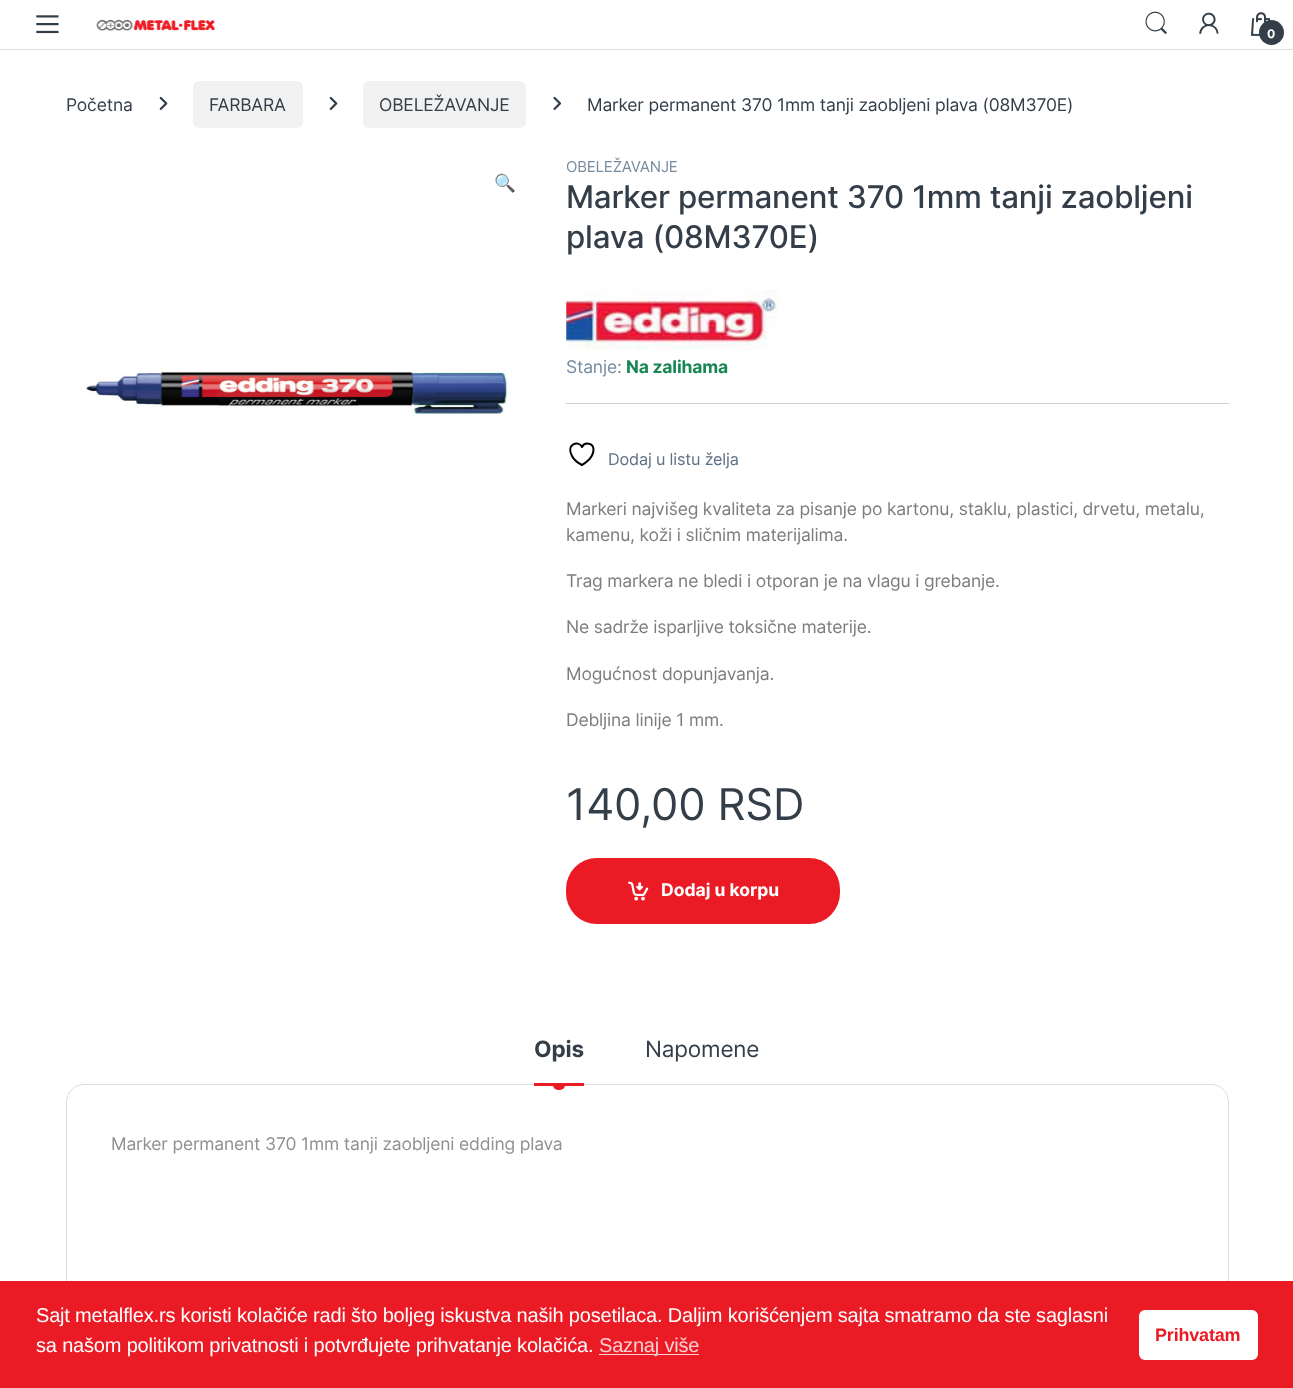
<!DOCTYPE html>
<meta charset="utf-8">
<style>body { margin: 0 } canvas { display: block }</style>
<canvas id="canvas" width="1293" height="1388"></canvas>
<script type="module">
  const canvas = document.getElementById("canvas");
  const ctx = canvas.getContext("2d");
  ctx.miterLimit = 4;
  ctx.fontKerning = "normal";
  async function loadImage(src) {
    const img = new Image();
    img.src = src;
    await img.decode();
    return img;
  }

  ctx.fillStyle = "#ffffff";
  ctx.fillRect(0, 0, 1293, 1388);
  ctx.fillStyle = "#dddddd";
  ctx.fillRect(0, 49, 1293, 1);
  ctx.drawImage(await loadImage("img1.png"), 36, 15, 23, 19);
  ctx.drawImage(await loadImage("img2.png"), 96, 19, 120, 12);
  ctx.drawImage(await loadImage("img3.png"), 1145, 11, 22, 24);
  ctx.drawImage(await loadImage("img4.png"), 1199, 12, 20, 22);
  ctx.drawImage(await loadImage("img5.png"), 1250, 12, 21, 24);
  ctx.fillStyle = "#333e48";
  ctx.beginPath();
  ctx.arc(1271.5, 32.5, 12.5, 0, Math.PI * 2);
  ctx.fill();
  ctx.letterSpacing = "-0.18px";
  ctx.font = "bold 12px Inter";
  ctx.fillStyle = "#ffffff";
  ctx.fillText("0", 1267, 38);
  ctx.font = "17.5px Inter";
  ctx.fillStyle = "#333e48";
  ctx.fillText("Početna", 66, 111);
  ctx.drawImage(await loadImage("img6.png"), 159, 96, 9, 14);
  ctx.fillStyle = "#f1f1f1";
  ctx.beginPath();
  ctx.roundRect(193, 81, 110, 47, 6);
  ctx.fill();
  ctx.fillStyle = "#333e48";
  ctx.fillText("FARBARA", 209, 111);
  ctx.drawImage(await loadImage("img6.png"), 329, 96, 9, 14);
  ctx.fillStyle = "#f1f1f1";
  ctx.beginPath();
  ctx.roundRect(363, 81, 163, 47, 6);
  ctx.fill();
  ctx.fillStyle = "#333e48";
  ctx.fillText("OBELEŽAVANJE", 379, 111);
  ctx.drawImage(await loadImage("img7.png"), 553, 96, 9, 14);
  ctx.fillText("Marker permanent 370 1mm tanji zaobljeni plava (08M370E)", 587, 111);
  ctx.font = "17.5px Noto Color Emoji";
  ctx.fillText("🔍", 494, 189);
  ctx.drawImage(await loadImage("img8.png"), 86, 371, 422, 43);
  ctx.font = "15px Inter";
  ctx.fillStyle = "#768b9e";
  ctx.fillText("OBELEŽAVANJE", 566, 172);
  ctx.font = "500 31.25px Inter";
  ctx.fillStyle = "#333e48";
  ctx.fillText("Marker permanent 370 1mm tanji zaobljeni", 566, 208);
  ctx.fillText("plava (08M370E)", 566, 248);
  ctx.drawImage(await loadImage("img9.png"), 566, 290, 214, 60);
  ctx.font = "17.5px Inter";
  ctx.fillStyle = "#768b9e";
  ctx.fillText("Stanje:", 566, 373);
  ctx.font = "bold 17.5px Inter";
  ctx.fillStyle = "#198754";
  ctx.fillText("Na zalihama", 626, 373);
  ctx.fillStyle = "#cccfd1";
  ctx.fillRect(566, 403, 663, 1);
  ctx.beginPath();
  ctx.moveTo(593.5, 449.5);
  ctx.bezierCurveTo(593.5, 443, 584.5, 441.5, 582, 447);
  ctx.bezierCurveTo(578.5, 439.5, 565.5, 444.5, 572, 456);
  ctx.bezierCurveTo(574, 460, 578, 463, 582, 465);
  ctx.bezierCurveTo(582, 465, 593.5, 459, 593.5, 449.5);
  ctx.closePath();
  ctx.strokeStyle = "#000000";
  ctx.lineWidth = 2;
  ctx.lineCap = "round";
  ctx.lineJoin = "round";
  ctx.stroke();
  ctx.font = "16.25px Inter";
  ctx.fillStyle = "#5d7184";
  ctx.fillText("Dodaj u listu želja", 608, 465);
  ctx.font = "17.5px Inter";
  ctx.fillStyle = "#7d7d7d";
  ctx.fillText("Markeri najvišeg kvaliteta za pisanje po kartonu, staklu, plastici, drvetu, metalu,", 566, 515);
  ctx.fillText("kamenu, koži i sličnim materijalima.", 566, 541);
  ctx.fillText("Trag markera ne bledi i otporan je na vlagu i grebanje.", 566, 587);
  ctx.fillText("Ne sadrže isparljive toksične materije.", 566, 633);
  ctx.fillText("Mogućnost dopunjavanja.", 566, 680);
  ctx.fillText("Debljina linije 1 mm.", 566, 726);
  ctx.font = "43.75px Inter";
  ctx.fillStyle = "#333e48";
  ctx.fillText("140,00 RSD", 566, 820);
  ctx.fillStyle = "#ea1b25";
  ctx.beginPath();
  ctx.roundRect(566, 858, 274, 66, 31);
  ctx.fill();
  ctx.drawImage(await loadImage("img10.png"), 628, 881, 21, 20);
  ctx.letterSpacing = "0px";
  ctx.font = "bold 17.5px Inter";
  ctx.fillStyle = "#ffffff";
  ctx.fillText("Dodaj u korpu", 661, 896);
  ctx.letterSpacing = "-0.18px";
  ctx.font = "bold 22.5px Inter";
  ctx.fillStyle = "#333e48";
  ctx.fillText("Opis", 534, 1057);
  ctx.beginPath();
  ctx.roundRect(66.5, 1084.5, 1162, 299, 17.5);
  ctx.strokeStyle = "#dddddd";
  ctx.lineWidth = 1;
  ctx.lineJoin = "miter";
  ctx.stroke();
  ctx.fillStyle = "#ea1b25";
  ctx.beginPath();
  ctx.roundRect(553, 1085, 12, 5, [0, 0, 5, 5]);
  ctx.fill();
  ctx.fillRect(534, 1083, 50, 3);
  ctx.font = "22.5px Inter";
  ctx.fillStyle = "#333e48";
  ctx.fillText("Napomene", 645, 1057);
  ctx.font = "17.5px Inter";
  ctx.fillStyle = "#919090";
  ctx.fillText("Marker permanent 370 1mm tanji zaobljeni edding plava", 111, 1150);
  ctx.fillStyle = "#ea1b25";
  ctx.fillRect(0, 1281, 1293, 107);
  ctx.font = "20px Liberation Sans";
  ctx.fillStyle = "#ffffff";
  ctx.fillText("Sajt metalflex.rs koristi kolačiće radi što boljeg iskustva naših posetilaca. Daljim korišćenjem sajta smatramo da ste saglasni", 36, 1322);
  ctx.fillText("sa našom politikom privatnosti i potvrđujete prihvatanje kolačića.", 36, 1352);
  ctx.fillStyle = "#fbd1d3";
  ctx.fillRect(599, 1354, 100, 1);
  ctx.fillText("Saznaj više", 599, 1352);
  ctx.fillStyle = "#ffffff";
  ctx.beginPath();
  ctx.roundRect(1139, 1310, 119, 50, 6);
  ctx.fill();
  ctx.font = "bold 18px Liberation Sans";
  ctx.fillStyle = "#ea1b25";
  ctx.fillText("Prihvatam", 1155, 1341);
</script>
